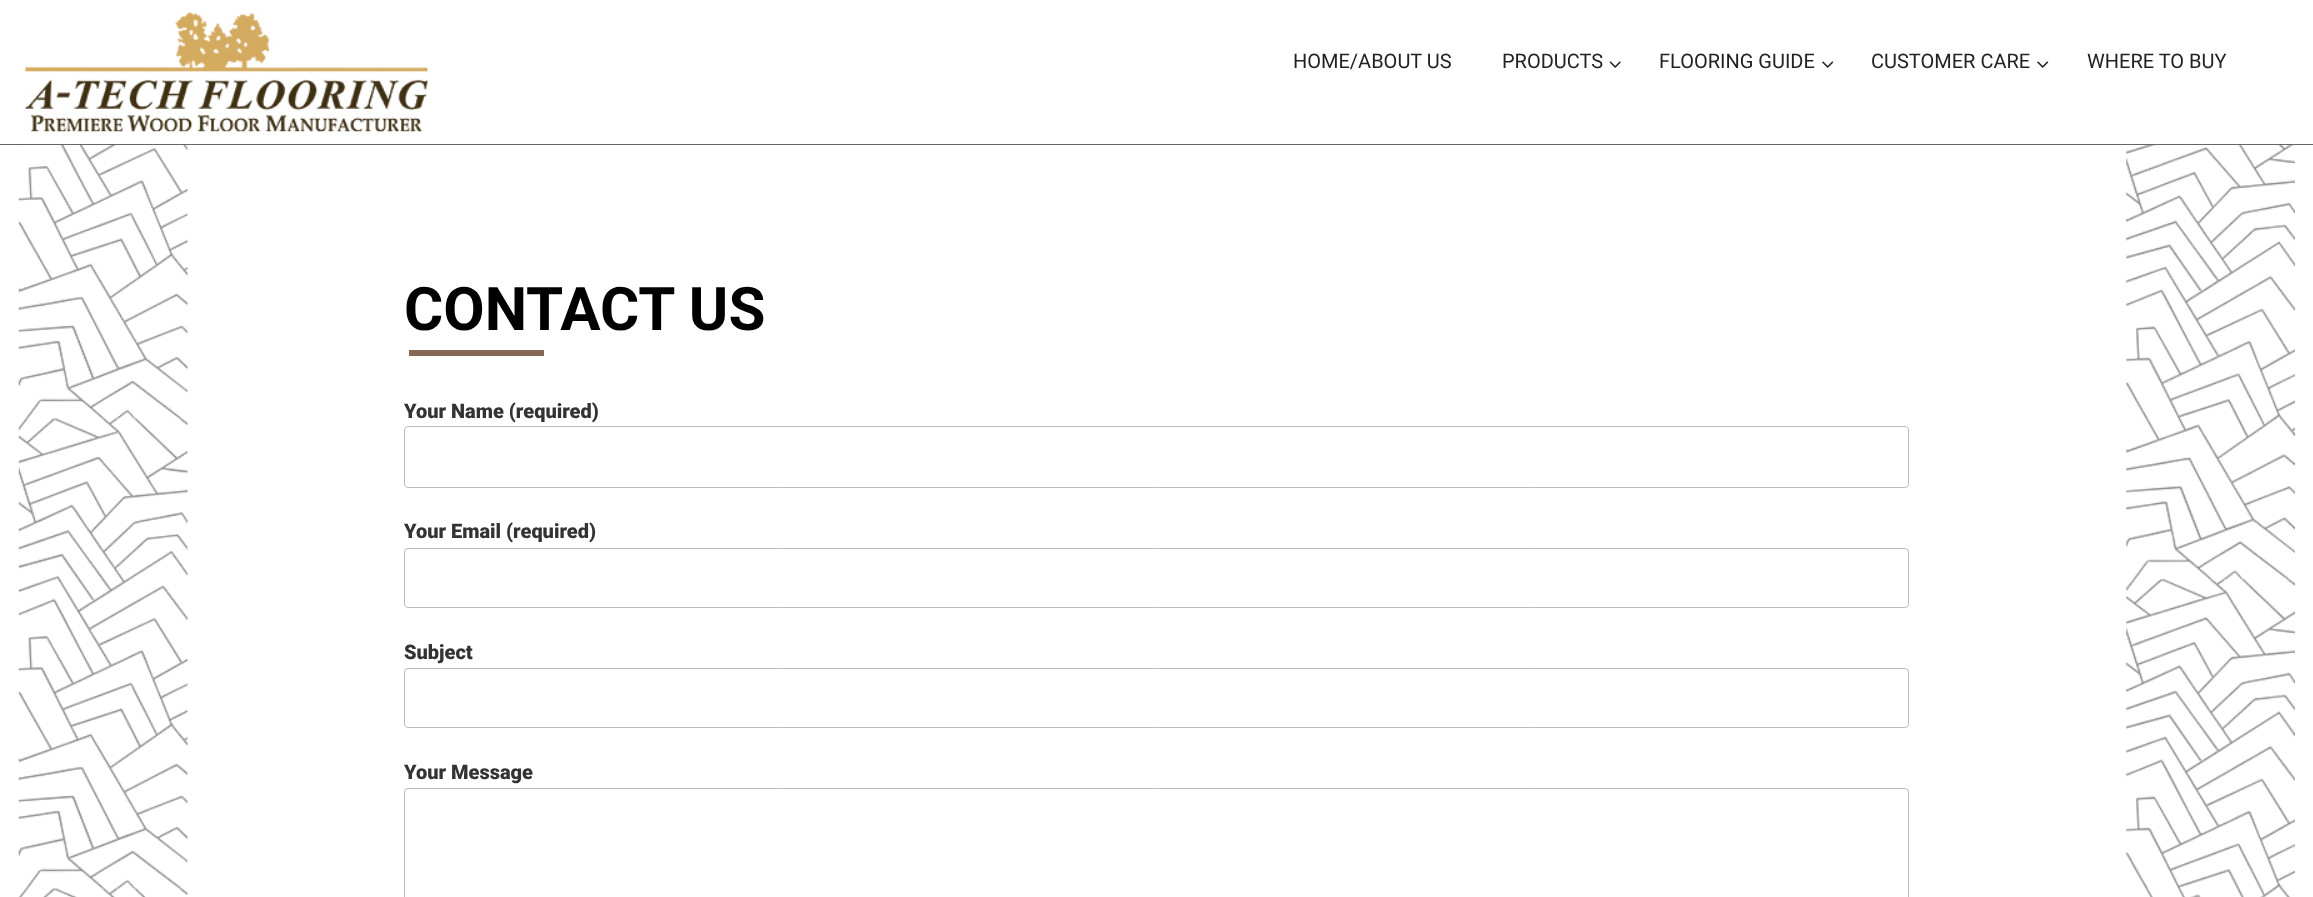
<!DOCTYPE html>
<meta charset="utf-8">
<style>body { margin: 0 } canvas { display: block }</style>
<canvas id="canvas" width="2313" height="897"></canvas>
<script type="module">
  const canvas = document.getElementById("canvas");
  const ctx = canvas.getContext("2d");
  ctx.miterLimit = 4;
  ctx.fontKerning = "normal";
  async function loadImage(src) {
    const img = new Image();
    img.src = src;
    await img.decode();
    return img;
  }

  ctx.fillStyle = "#ffffff";
  ctx.fillRect(0, 0, 2313, 897);
  ctx.drawImage(await loadImage("img1.png"), 2126, 145, 169, 752);
  ctx.drawImage(await loadImage("img2.png"), 18, 145, 170, 752);
  ctx.fillStyle = "#666666";
  ctx.fillRect(0, 144, 2313, 1);
  ctx.drawImage(await loadImage("img3.png"), 25, 12, 403, 120);
  ctx.font = "20px Roboto";
  ctx.fillStyle = "#222222";
  ctx.fillText("HOME/ABOUT US", 1293, 68);
  ctx.fillText("PRODUCTS", 1502, 68);
  ctx.drawImage(await loadImage("img4.png"), 1609, 61, 12, 7);
  ctx.fillText("FLOORING GUIDE", 1659, 68);
  ctx.drawImage(await loadImage("img5.png"), 1822, 61, 12, 7);
  ctx.fillText("CUSTOMER CARE", 1871, 68);
  ctx.drawImage(await loadImage("img5.png"), 2037, 61, 12, 7);
  ctx.fillText("WHERE TO BUY", 2087, 68);
  ctx.font = "bold 60px Roboto";
  ctx.fillStyle = "#000000";
  ctx.fillText("CONTACT US", 404, 330);
  ctx.fillStyle = "#836953";
  ctx.fillRect(409, 350, 135, 6);
  ctx.font = "900 20px Roboto";
  ctx.fillStyle = "#333333";
  ctx.fillText("Your Name (required)", 404, 418);
  ctx.beginPath();
  ctx.roundRect(404.5, 426.5, 1504, 61, 3.5);
  ctx.strokeStyle = "#bbbbbb";
  ctx.stroke();
  ctx.fillText("Your Email (required)", 404, 538);
  ctx.beginPath();
  ctx.roundRect(404.5, 548.5, 1504, 59, 3.5);
  ctx.stroke();
  ctx.fillText("Subject", 404, 659);
  ctx.beginPath();
  ctx.roundRect(404.5, 668.5, 1504, 59, 3.5);
  ctx.stroke();
  ctx.fillText("Your Message", 404, 779);
  ctx.beginPath();
  ctx.roundRect(404.5, 788.5, 1504, 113, 3.5);
  ctx.stroke();
</script>
